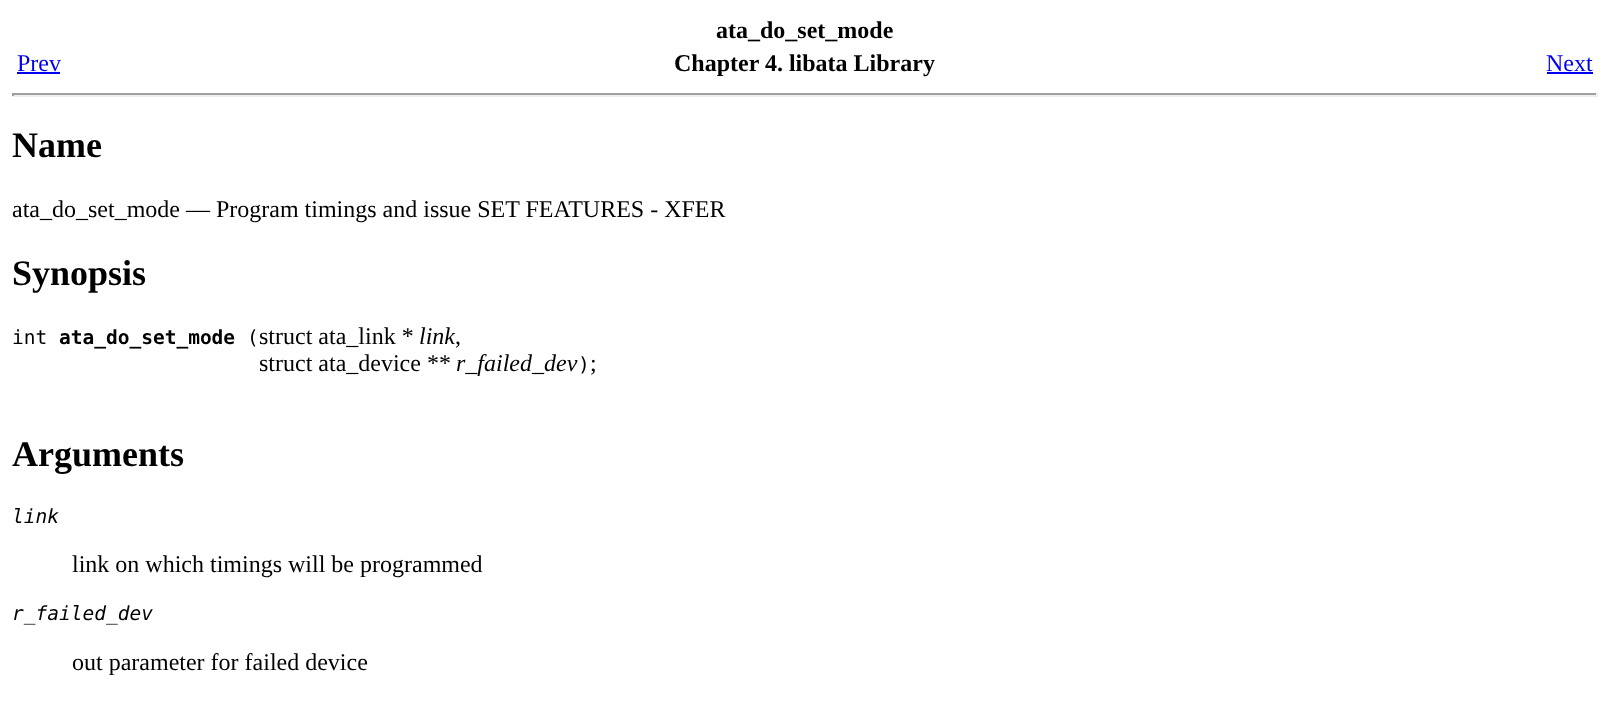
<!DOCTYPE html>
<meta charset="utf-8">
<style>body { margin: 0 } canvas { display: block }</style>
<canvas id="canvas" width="1609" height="711"></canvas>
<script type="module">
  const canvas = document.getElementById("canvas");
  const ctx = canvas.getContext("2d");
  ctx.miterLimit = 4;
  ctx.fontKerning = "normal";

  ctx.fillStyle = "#ffffff";
  ctx.fillRect(0, 0, 1609, 711);
  ctx.font = "bold 24px Liberation Serif";
  ctx.fillStyle = "#000000";
  ctx.fillText("ata_do_set_mode", 716, 38);
  ctx.font = "24px Liberation Serif";
  ctx.fillStyle = "#0000ee";
  ctx.fillText("Prev", 17, 71);
  ctx.fillRect(17, 72, 43, 2);
  ctx.font = "bold 24px Liberation Serif";
  ctx.fillStyle = "#000000";
  ctx.fillText("Chapter 4. libata Library", 674, 71);
  ctx.font = "24px Liberation Serif";
  ctx.fillStyle = "#0000ee";
  ctx.fillText("Next", 1546, 71);
  ctx.fillRect(1547, 72, 46, 2);
  ctx.fillStyle = "#9f9f9f";
  ctx.fillRect(12, 93, 1586, 2);
  ctx.fillStyle = "#eeeeee";
  ctx.fillRect(1596, 93, 2, 3);
  ctx.fillRect(12, 95, 1586, 2);
  ctx.fillStyle = "#9f9f9f";
  ctx.fillRect(12, 93, 2, 3);
  ctx.font = "bold 36px Liberation Serif";
  ctx.fillStyle = "#000000";
  ctx.fillText("Name", 12, 157);
  ctx.font = "24px Liberation Serif";
  ctx.fillText("ata_do_set_mode — Program timings and issue SET FEATURES - XFER", 12, 217);
  ctx.font = "bold 36px Liberation Serif";
  ctx.fillText("Synopsis", 12, 285);
  ctx.font = "19.5px DejaVu Sans Mono";
  ctx.fillText("int", 12, 344);
  ctx.font = "bold 19.5px DejaVu Sans Mono";
  ctx.fillText("ata_do_set_mode", 59, 344);
  ctx.font = "19.5px DejaVu Sans Mono";
  ctx.fillText("(", 247, 344);
  ctx.font = "24px Liberation Serif";
  ctx.fillText("struct ata_link *", 259, 344);
  ctx.font = "italic 24px Liberation Serif";
  ctx.fillText("link", 419, 344);
  ctx.font = "24px Liberation Serif";
  ctx.fillText(",", 455, 344);
  ctx.fillText("struct ata_device **", 259, 371);
  ctx.font = "italic 24px Liberation Serif";
  ctx.fillText("r_failed_dev", 456, 371);
  ctx.font = "19.5px DejaVu Sans Mono";
  ctx.fillText(")", 578, 371);
  ctx.font = "24px Liberation Serif";
  ctx.fillText(";", 590, 371);
  ctx.font = "bold 36px Liberation Serif";
  ctx.fillText("Arguments", 12, 466);
  ctx.font = "italic 19.5px DejaVu Sans Mono";
  ctx.fillText("link", 12, 523);
  ctx.font = "24px Liberation Serif";
  ctx.fillText("link on which timings will be programmed", 72, 572);
  ctx.font = "italic 19.5px DejaVu Sans Mono";
  ctx.fillText("r_failed_dev", 12, 620);
  ctx.font = "24px Liberation Serif";
  ctx.fillText("out parameter for failed device", 72, 670);
</script>
